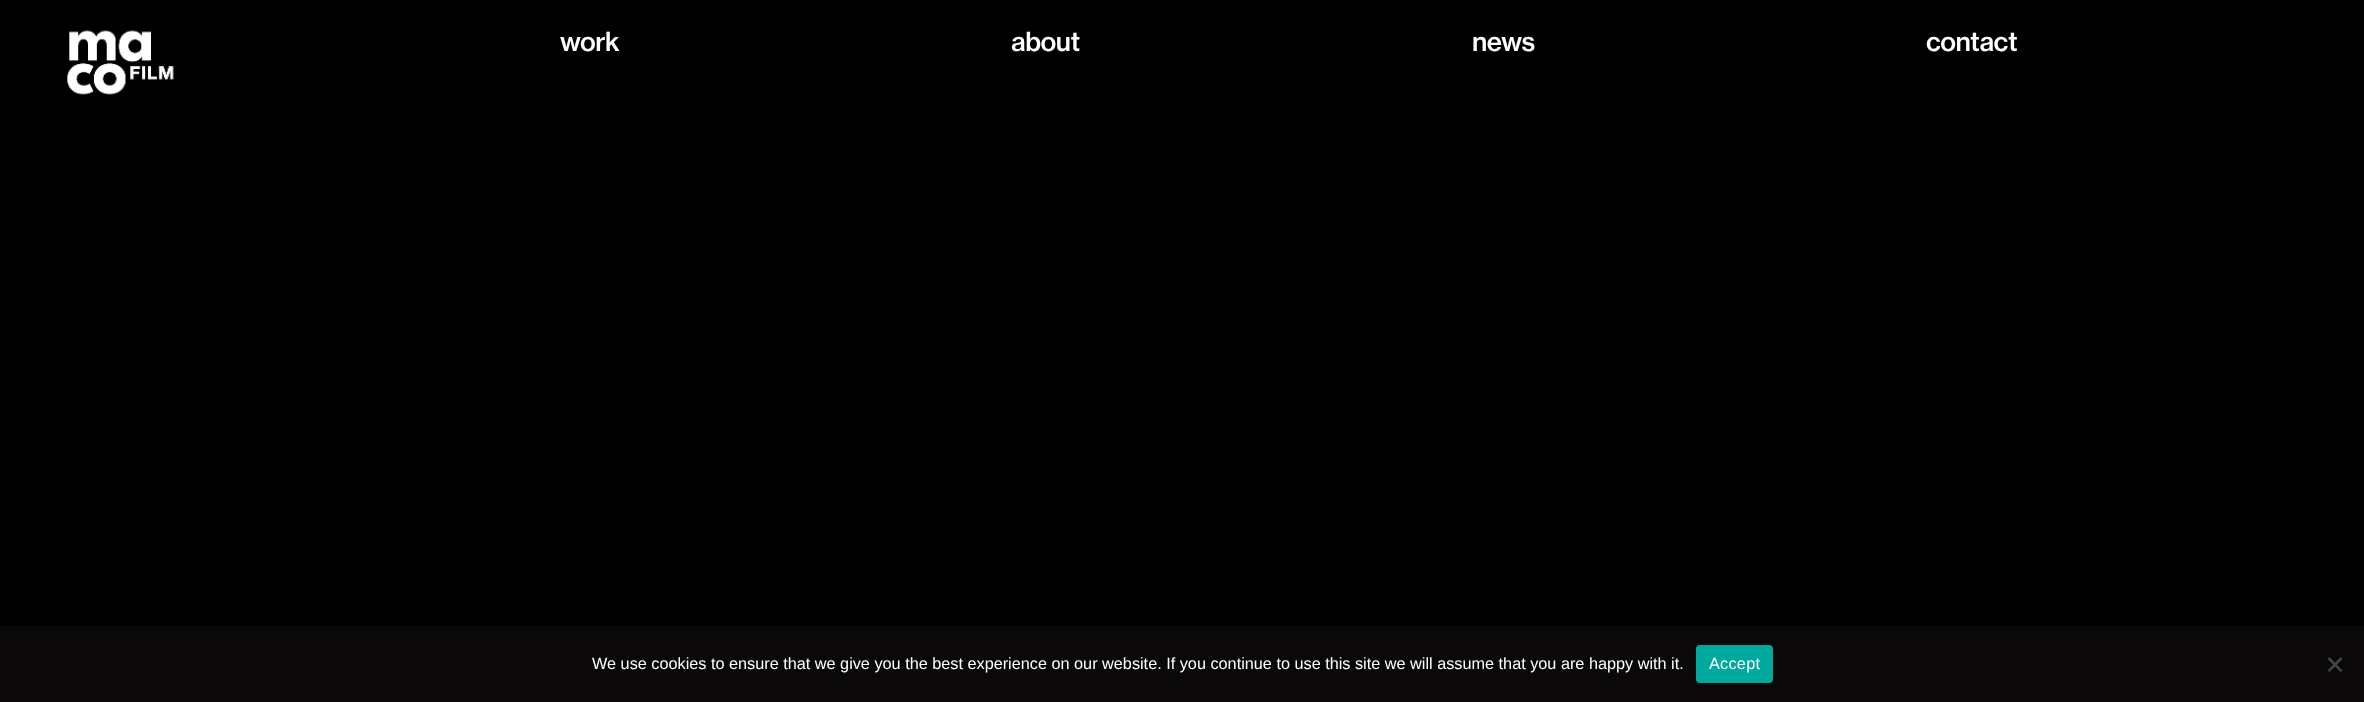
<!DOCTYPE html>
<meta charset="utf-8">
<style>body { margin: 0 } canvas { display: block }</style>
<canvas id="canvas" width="2364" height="702"></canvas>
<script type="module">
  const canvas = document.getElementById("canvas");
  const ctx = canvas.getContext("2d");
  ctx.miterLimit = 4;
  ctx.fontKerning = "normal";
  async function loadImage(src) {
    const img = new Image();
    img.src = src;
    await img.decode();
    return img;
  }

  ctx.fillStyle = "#000000";
  ctx.fillRect(0, 0, 2364, 702);
  ctx.drawImage(await loadImage("img1.png"), 67, 30, 107, 65);
  ctx.letterSpacing = "-0.5px";
  ctx.font = "500 26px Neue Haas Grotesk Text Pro";
  ctx.fillStyle = "#ffffff";
  ctx.fillText("work", 560, 51);
  ctx.fillText("about", 1011, 51);
  ctx.fillText("news", 1472, 51);
  ctx.fillText("contact", 1926, 51);
  ctx.fillStyle = "#0a0808";
  ctx.fillRect(0, 626, 2364, 76);
  ctx.letterSpacing = "0px";
  ctx.font = "16.25px Liberation Sans";
  ctx.fillStyle = "#ffffff";
  ctx.fillText("We use cookies to ensure that we give you the best experience on our website. If you continue to use this site we will assume that you are happy with it.", 592, 669);
  ctx.fillStyle = "#00a99d";
  ctx.beginPath();
  ctx.roundRect(1696, 645, 77, 38, 4);
  ctx.fill();
  ctx.letterSpacing = "0.25px";
  ctx.fillStyle = "#ffffff";
  ctx.fillText("Accept", 1709, 669);
  ctx.fillStyle = "#454444";
  ctx.beginPath();
  ctx.moveTo(2340.5, 657);
  ctx.lineTo(2342.5, 659);
  ctx.lineTo(2329.5, 672);
  ctx.lineTo(2327.5, 670.5);
  ctx.closePath();
  ctx.fill();
  ctx.beginPath();
  ctx.moveTo(2327.5, 659);
  ctx.lineTo(2329.5, 657);
  ctx.lineTo(2342.5, 670.5);
  ctx.lineTo(2340.5, 672);
  ctx.closePath();
  ctx.fill();
</script>
